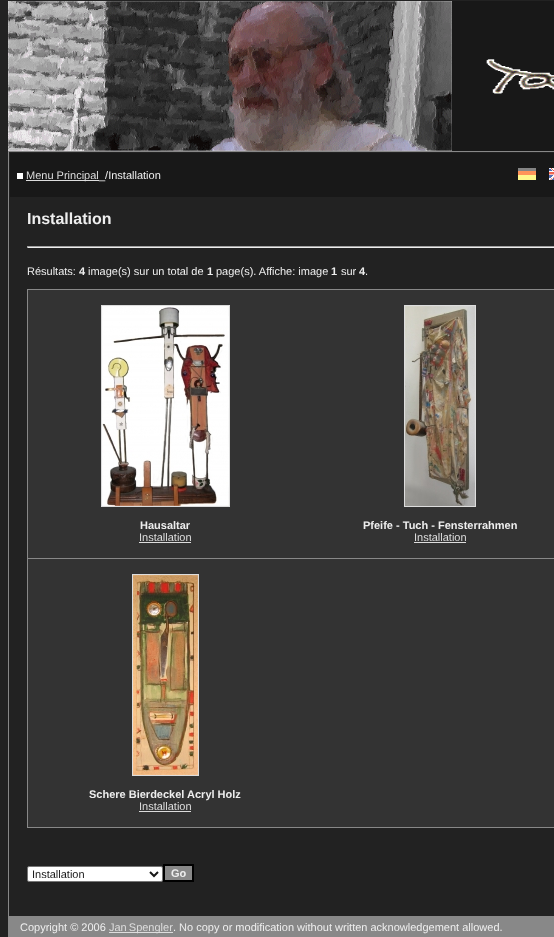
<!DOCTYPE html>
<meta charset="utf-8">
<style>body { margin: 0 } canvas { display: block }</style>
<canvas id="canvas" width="554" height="937"></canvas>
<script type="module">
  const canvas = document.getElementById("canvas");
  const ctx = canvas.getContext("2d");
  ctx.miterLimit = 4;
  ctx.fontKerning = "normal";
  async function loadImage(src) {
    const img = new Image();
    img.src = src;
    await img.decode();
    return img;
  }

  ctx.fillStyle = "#222222";
  ctx.fillRect(0, 0, 554, 937);
  ctx.fillStyle = "#181818";
  ctx.fillRect(452, 1, 102, 150);
  ctx.drawImage(await loadImage("img1.png"), 8, 1, 444, 150);
  ctx.drawImage(await loadImage("img2.png"), 486, 59, 68, 35);
  ctx.fillStyle = "#888888";
  ctx.fillRect(8, 151, 546, 786);
  ctx.fillStyle = "#222222";
  ctx.fillRect(9, 152, 545, 764);
  ctx.fillStyle = "#181818";
  ctx.fillRect(10, 153, 544, 44);
  ctx.fillStyle = "#ffffff";
  ctx.fillRect(17, 173, 6, 6);
  ctx.fillStyle = "#dddddd";
  ctx.fillRect(26, 180, 73, 1);
  ctx.font = "11px Liberation Sans";
  ctx.fillText("Menu Principal", 26, 179);
  ctx.fillStyle = "#eeeeee";
  ctx.fillText("_/Installation", 99, 179);
  ctx.drawImage(await loadImage("img3.png"), 518, 168, 18, 12);
  ctx.drawImage(await loadImage("img4.png"), 549, 168, 5, 12);
  ctx.font = "bold 16px Liberation Sans";
  ctx.fillText("Installation", 27, 224);
  ctx.fillRect(27, 247, 527, 1);
  ctx.fillStyle = "#9f9f9f";
  ctx.fillRect(27, 246, 527, 1);
  ctx.fillRect(27, 246, 1, 2);
  ctx.font = "11px Liberation Sans";
  ctx.fillStyle = "#eeeeee";
  ctx.fillText("Résultats:", 27, 275);
  ctx.font = "bold 11px Liberation Sans";
  ctx.fillText("4", 79, 275);
  ctx.font = "11px Liberation Sans";
  ctx.fillText("image(s) sur un total de", 88, 275);
  ctx.font = "bold 11px Liberation Sans";
  ctx.fillText("1", 207, 275);
  ctx.font = "11px Liberation Sans";
  ctx.fillText("page(s). Affiche: image", 216, 275);
  ctx.font = "bold 11px Liberation Sans";
  ctx.fillText("1", 331, 275);
  ctx.font = "11px Liberation Sans";
  ctx.fillText("sur", 341, 275);
  ctx.font = "bold 11px Liberation Sans";
  ctx.fillText("4", 359, 275);
  ctx.font = "11px Liberation Sans";
  ctx.fillText(".", 365, 275);
  ctx.fillStyle = "#888888";
  ctx.fillRect(27, 289, 527, 539);
  ctx.fillStyle = "#333333";
  ctx.fillRect(28, 290, 526, 268);
  ctx.strokeStyle = "#dddddd";
  ctx.strokeRect(101.5, 305.5, 128, 201);
  ctx.drawImage(await loadImage("img5.png"), 102, 306, 127, 200);
  ctx.font = "bold 11px Liberation Sans";
  ctx.fillStyle = "#eeeeee";
  ctx.fillText("Hausaltar", 140, 529);
  ctx.font = "11px Liberation Sans";
  ctx.fillStyle = "#dddddd";
  ctx.fillText("Installation", 139, 541);
  ctx.fillRect(139, 542, 52, 1);
  ctx.strokeRect(404.5, 305.5, 71, 201);
  ctx.drawImage(await loadImage("img6.png"), 405, 306, 70, 200);
  ctx.font = "bold 11px Liberation Sans";
  ctx.fillStyle = "#eeeeee";
  ctx.fillText("Pfeife - Tuch - Fensterrahmen", 363, 529);
  ctx.font = "11px Liberation Sans";
  ctx.fillStyle = "#dddddd";
  ctx.fillText("Installation", 414, 541);
  ctx.fillRect(414, 542, 52, 1);
  ctx.fillStyle = "#333333";
  ctx.fillRect(28, 559, 526, 268);
  ctx.strokeRect(132.5, 574.5, 66, 201);
  ctx.drawImage(await loadImage("img7.png"), 133, 575, 65, 200);
  ctx.font = "bold 11px Liberation Sans";
  ctx.fillStyle = "#eeeeee";
  ctx.fillText("Schere Bierdeckel Acryl Holz", 89, 798);
  ctx.font = "11px Liberation Sans";
  ctx.fillStyle = "#dddddd";
  ctx.fillText("Installation", 139, 810);
  ctx.fillRect(139, 811, 52, 1);
  ctx.fillStyle = "#ffffff";
  ctx.beginPath();
  ctx.roundRect(27.5, 866.5, 135, 15, 1.5);
  ctx.fill();
  ctx.strokeStyle = "#767676";
  ctx.stroke();
  ctx.beginPath();
  ctx.moveTo(150, 872);
  ctx.lineTo(154, 876);
  ctx.lineTo(158, 872);
  ctx.strokeStyle = "#181818";
  ctx.lineWidth = 2;
  ctx.stroke();
  ctx.fillStyle = "#181818";
  ctx.fillText("Installation", 32, 878);
  ctx.fillStyle = "#888888";
  ctx.beginPath();
  ctx.rect(164, 865, 29, 16);
  ctx.fill();
  ctx.strokeStyle = "#000000";
  ctx.stroke();
  ctx.font = "bold 11px Liberation Sans";
  ctx.fillStyle = "#eeeeee";
  ctx.fillText("Go", 171, 877);
  ctx.font = "11px Liberation Sans";
  ctx.fillText("Copyright © 2006", 20, 931);
  ctx.fillStyle = "#dddddd";
  ctx.fillRect(109, 932, 64, 1);
  ctx.wordSpacing = "-1px";
  ctx.fillText("Jan Spengler", 109, 931);
  ctx.wordSpacing = "0px";
  ctx.fillStyle = "#eeeeee";
  ctx.fillText(". No copy or modification without written acknowledgement allowed.", 173, 931);
</script>
